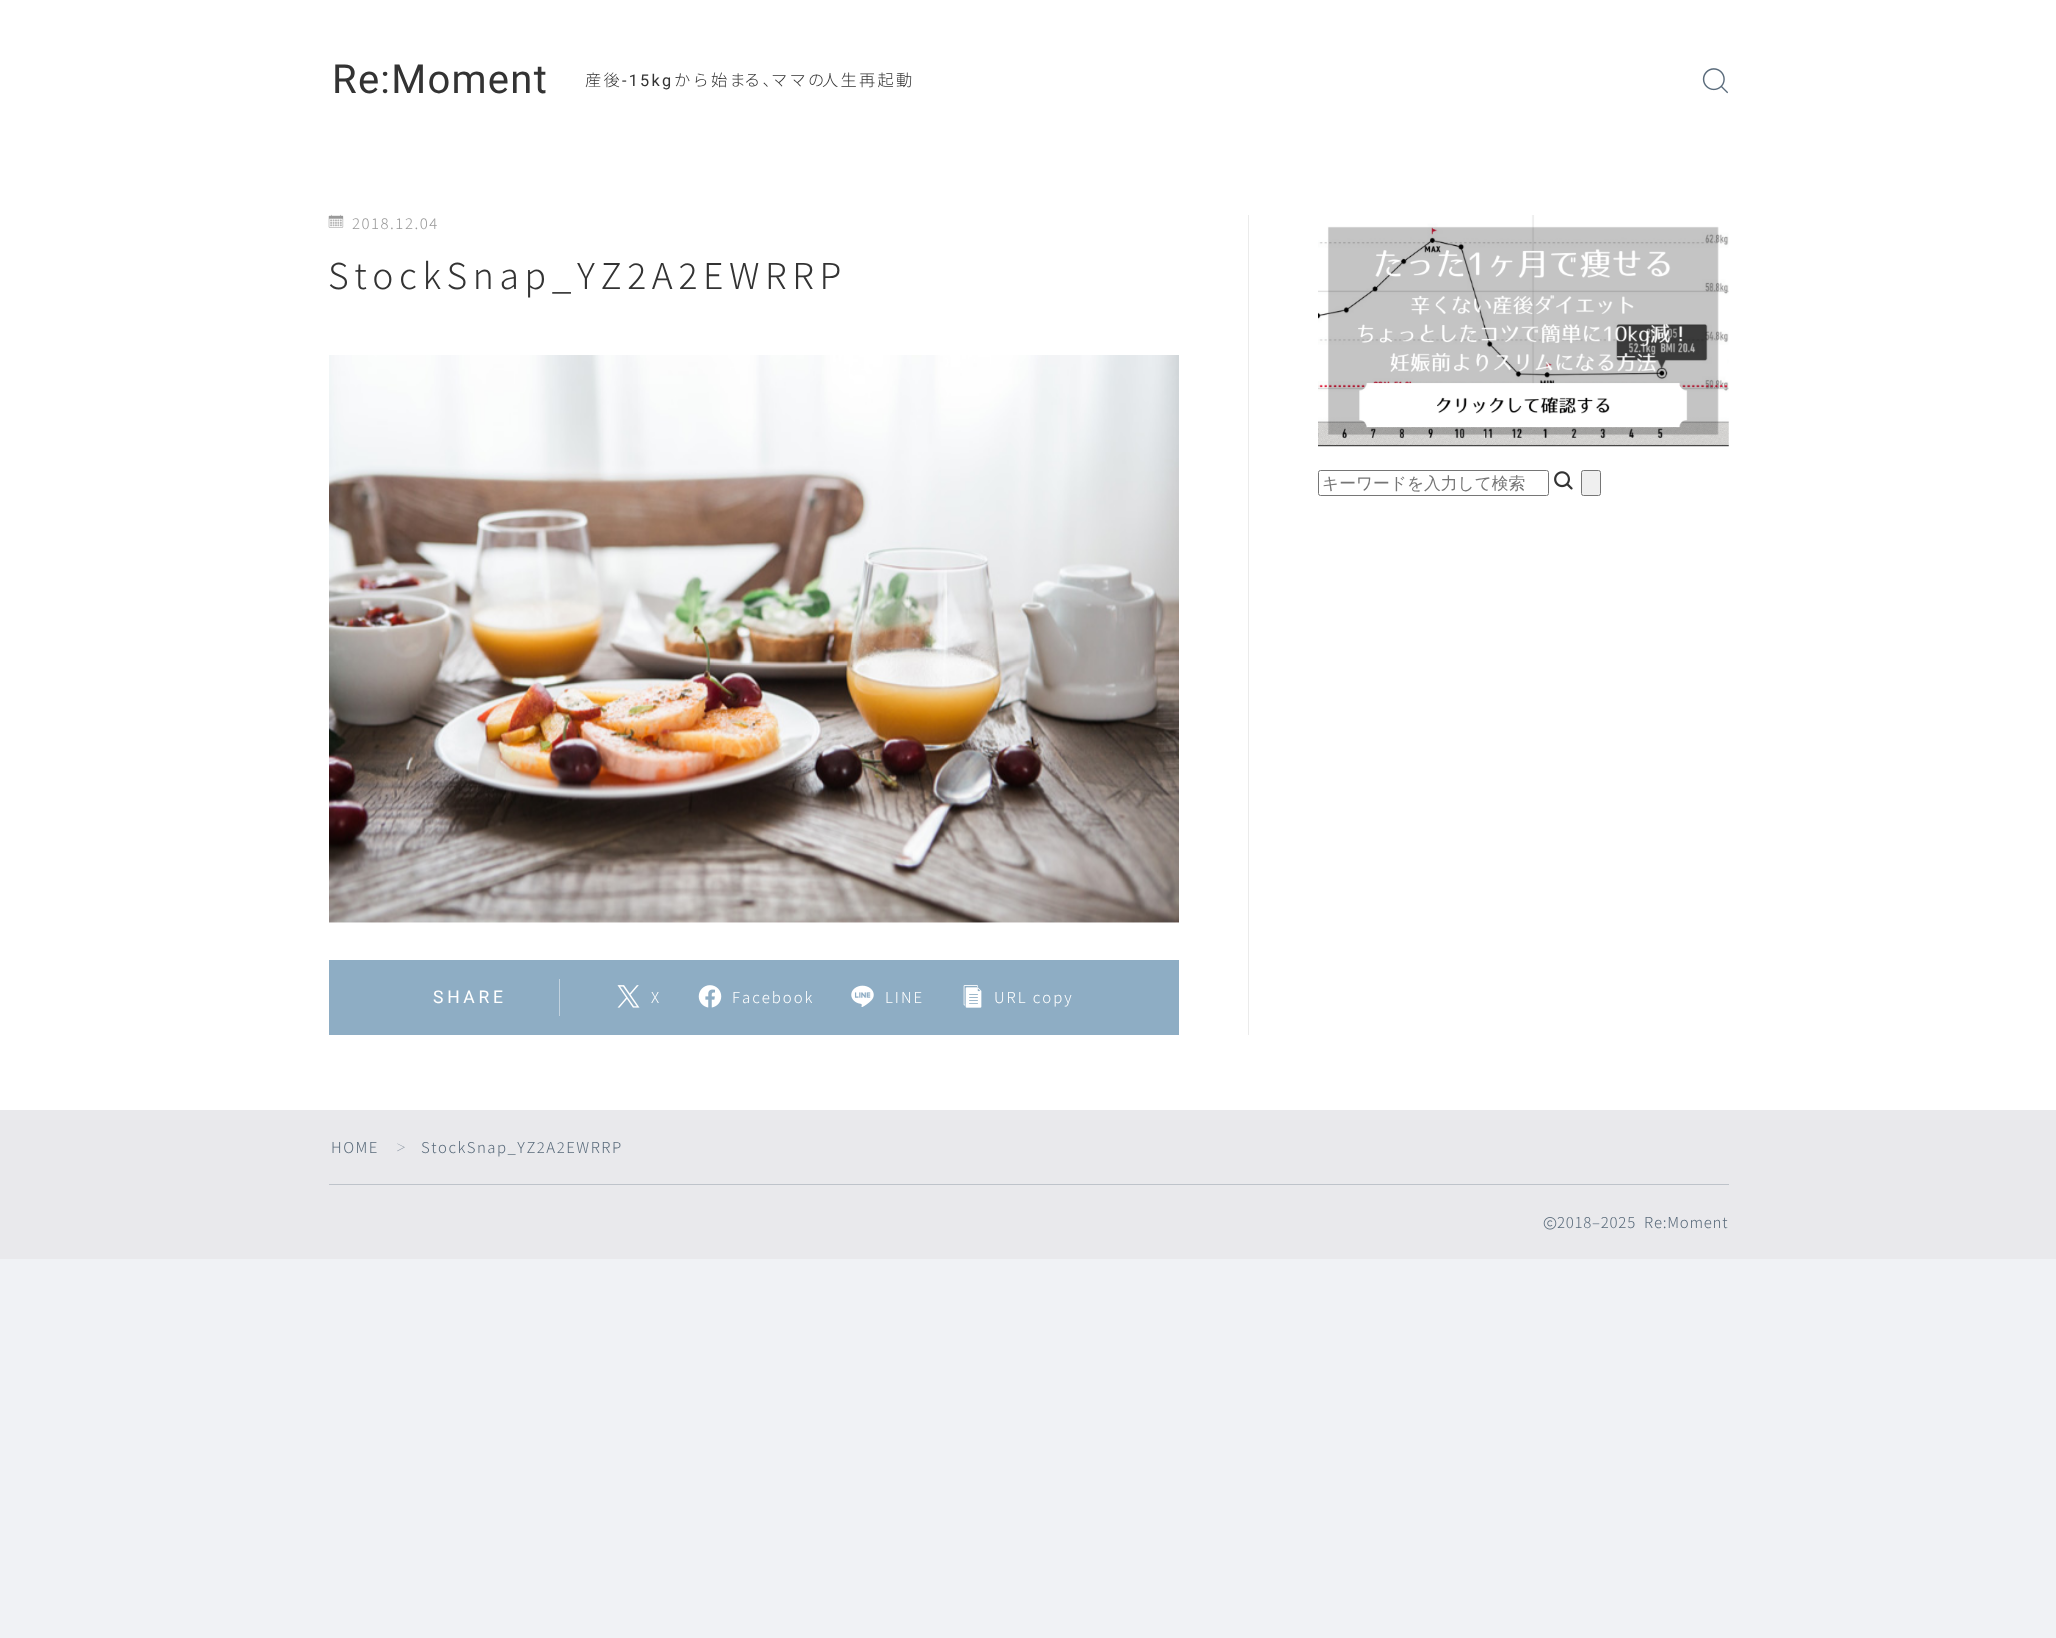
<!DOCTYPE html>
<meta charset="utf-8">
<style>body { margin: 0 } canvas { display: block }</style>
<canvas id="canvas" width="2056" height="1638"></canvas>
<script type="module">
  const canvas = document.getElementById("canvas");
  const ctx = canvas.getContext("2d");
  ctx.miterLimit = 4;
  ctx.fontKerning = "none";
  async function loadImage(src) {
    const img = new Image();
    img.src = src;
    await img.decode();
    return img;
  }

  ctx.fillStyle = "#f0f2f5";
  ctx.fillRect(0, 0, 2056, 1638);
  ctx.fillStyle = "#ffffff";
  ctx.fillRect(0, 0, 2056, 1110);
  ctx.letterSpacing = "1.25px";
  ctx.font = "40px Roboto";
  ctx.fillStyle = "#333333";
  ctx.fillText("Re:Moment", 332, 93);
  ctx.letterSpacing = "2.25px";
  ctx.font = "300 16.25px Noto Sans JP";
  ctx.fillText("産後", 585, 86);
  ctx.font = "16.25px Roboto";
  ctx.fillText("-15kg", 622, 86);
  ctx.font = "300 16.25px Noto Sans JP";
  ctx.fillText("から始ま", 674, 86);
  ctx.fillText("る、", 744, 86);
  ctx.fillText("ママの", 771, 86);
  ctx.fillText("人生再起動", 822, 86);
  ctx.drawImage(await loadImage("img1.png"), 1702, 68, 26, 26);
  ctx.drawImage(await loadImage("img2.png"), 328, 214, 16, 14);
  ctx.letterSpacing = "1.5px";
  ctx.font = "300 15px Noto Sans JP";
  ctx.fillStyle = "#999999";
  ctx.fillText("2018.12.04", 352, 229);
  ctx.letterSpacing = "5.6px";
  ctx.font = "300 35.6px Noto Sans JP";
  ctx.fillStyle = "#333333";
  ctx.fillText("StockSnap_YZ2A2EWRRP", 328, 289);
  ctx.drawImage(await loadImage("img3.png"), 329, 355, 850, 568);
  ctx.fillStyle = "#8eadc4";
  ctx.fillRect(329, 960, 850, 75);
  ctx.letterSpacing = "3.75px";
  ctx.font = "17.5px Roboto";
  ctx.fillStyle = "#ffffff";
  ctx.fillText("SHARE", 433, 1003);
  ctx.fillStyle = "#c1d2df";
  ctx.fillRect(559, 979, 1, 37);
  ctx.drawImage(await loadImage("img4.png"), 617, 985, 23, 23);
  ctx.letterSpacing = "2px";
  ctx.font = "300 15px Noto Sans JP";
  ctx.fillStyle = "#ffffff";
  ctx.fillText("X", 651, 1003);
  ctx.drawImage(await loadImage("img5.png"), 698, 985, 24, 23);
  ctx.fillText("Facebook", 732, 1003);
  ctx.drawImage(await loadImage("img6.png"), 851, 985, 23, 22);
  ctx.fillText("LINE", 885, 1003);
  ctx.drawImage(await loadImage("img7.png"), 963, 985, 19, 23);
  ctx.fillText("URL copy", 994, 1003);
  ctx.fillStyle = "#ebebeb";
  ctx.fillRect(1248, 215, 1, 820);
  ctx.drawImage(await loadImage("img8.png"), 1318, 215, 411, 232);
  ctx.beginPath();
  ctx.roundRect(1318.5, 470.5, 230, 25, 2);
  ctx.strokeStyle = "#767676";
  ctx.stroke();
  ctx.letterSpacing = "0px";
  ctx.font = "500 16.75px WenQuanYi Zen Hei";
  ctx.fillStyle = "#757575";
  ctx.fillText("キーワードを入力して検索", 1322, 489);
  ctx.drawImage(await loadImage("img9.png"), 1554, 471, 19, 19);
  ctx.fillStyle = "#efefef";
  ctx.beginPath();
  ctx.roundRect(1581.5, 470.5, 19, 25, 2);
  ctx.fill();
  ctx.stroke();
  ctx.fillStyle = "#e9e9ec";
  ctx.fillRect(0, 1110, 2056, 149);
  ctx.letterSpacing = "1.5px";
  ctx.font = "300 15px Noto Sans JP";
  ctx.fillStyle = "#5a6b7b";
  ctx.fillText("HOME", 331, 1153);
  ctx.letterSpacing = "1px";
  ctx.font = "300 10px Noto Sans JP";
  ctx.fillStyle = "#85919d";
  ctx.fillText("＞", 396, 1151);
  ctx.letterSpacing = "1.5px";
  ctx.font = "300 15px Noto Sans JP";
  ctx.fillStyle = "#5a6b7b";
  ctx.fillText("StockSnap_YZ2A2EWRRP", 421, 1153);
  ctx.fillStyle = "#bec3ca";
  ctx.fillRect(329, 1184, 1400, 1);
  ctx.drawImage(await loadImage("img10.png"), 1543, 1217, 14, 13);
  ctx.letterSpacing = "0.75px";
  ctx.fillStyle = "#5a6b7b";
  ctx.fillText("2018–2025  Re:Moment", 1557, 1228);
</script>
